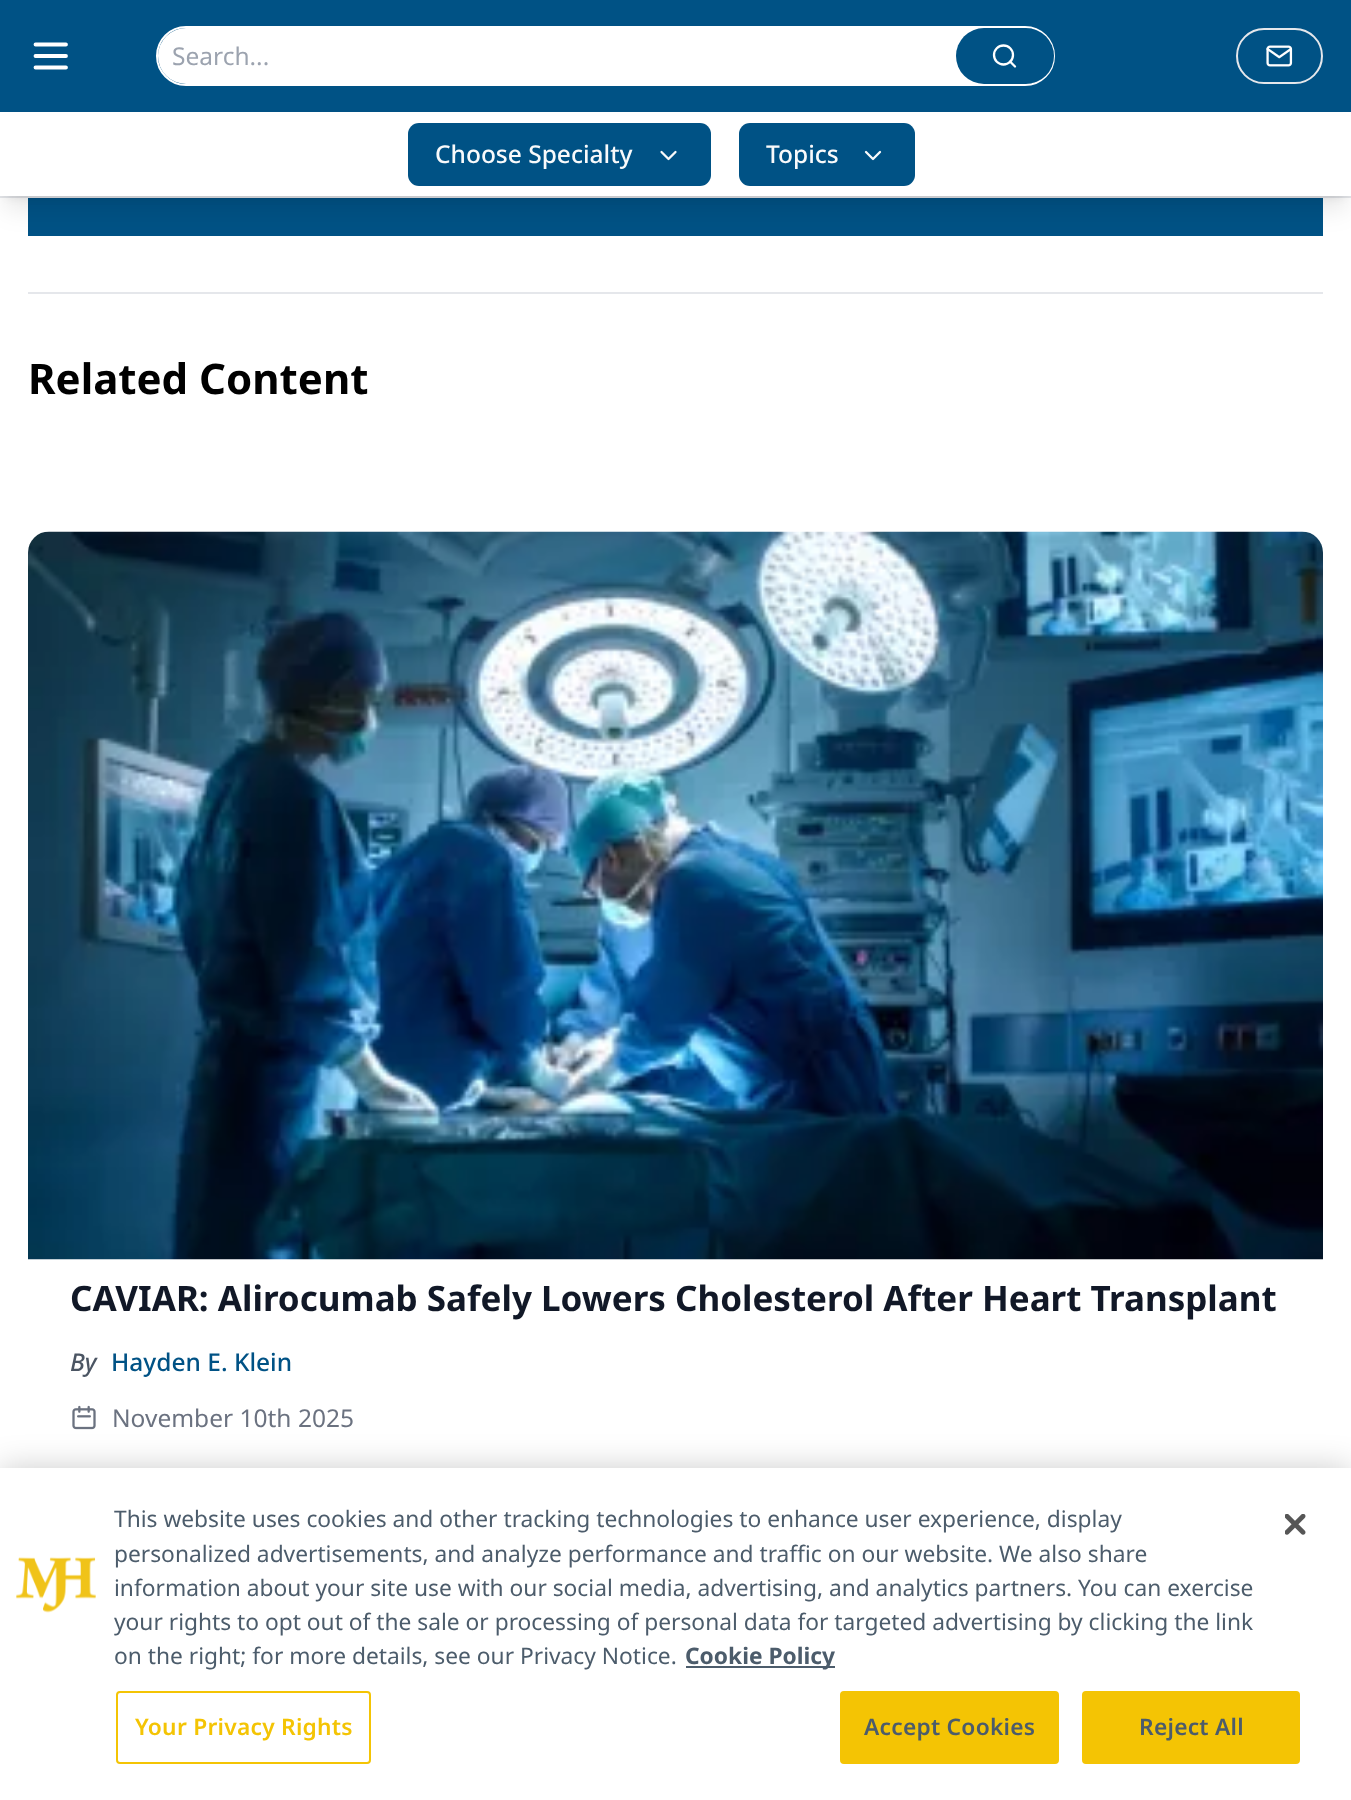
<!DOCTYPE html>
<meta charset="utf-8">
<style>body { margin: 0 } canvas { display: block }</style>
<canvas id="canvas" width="1351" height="1800"></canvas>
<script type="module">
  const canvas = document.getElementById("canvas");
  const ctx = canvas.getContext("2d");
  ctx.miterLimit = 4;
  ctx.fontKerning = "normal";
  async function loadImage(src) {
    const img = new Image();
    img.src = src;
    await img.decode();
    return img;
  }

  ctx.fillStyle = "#ffffff";
  ctx.fillRect(0, 0, 1351, 1800);
  ctx.fillStyle = "#005285";
  ctx.fillRect(0, 0, 1351, 112);
  ctx.fillStyle = "#e5e7eb";
  ctx.fillRect(0, 196, 1351, 2);
  ctx.beginPath();
  ctx.moveTo(35.5, 44.5);
  ctx.lineTo(66, 44.5);
  ctx.moveTo(35.5, 56);
  ctx.lineTo(66, 56);
  ctx.moveTo(35.5, 67.5);
  ctx.lineTo(66, 67.5);
  ctx.strokeStyle = "#ffffff";
  ctx.lineWidth = 3.8;
  ctx.lineCap = "round";
  ctx.lineJoin = "round";
  ctx.stroke();
  ctx.beginPath();
  ctx.roundRect(157, 27, 897, 58, 29);
  ctx.lineWidth = 2;
  ctx.lineJoin = "miter";
  ctx.stroke();
  ctx.fillStyle = "#ffffff";
  ctx.beginPath();
  ctx.roundRect(158, 28, 896, 56, 28);
  ctx.fill();
  ctx.font = "24.5px Noto Sans";
  ctx.fillStyle = "#9ca3af";
  ctx.fillText("Search...", 172, 65);
  ctx.fillStyle = "#005285";
  ctx.beginPath();
  ctx.roundRect(956, 28, 98, 56, 28);
  ctx.fill();
  ctx.beginPath();
  ctx.arc(1003.5, 55, 9.5, 0, Math.PI * 2);
  ctx.lineWidth = 2.3;
  ctx.stroke();
  ctx.beginPath();
  ctx.moveTo(1015, 66.5);
  ctx.lineTo(1010, 61.5);
  ctx.lineJoin = "round";
  ctx.stroke();
  ctx.beginPath();
  ctx.roundRect(1237, 29, 85, 54, 27);
  ctx.strokeStyle = "#e5e7eb";
  ctx.lineWidth = 2;
  ctx.lineJoin = "miter";
  ctx.stroke();
  ctx.drawImage(await loadImage("img1.png"), 1266, 45, 27, 22);
  ctx.fillRect(28, 198, 1295, 38);
  ctx.fillStyle = "rgba(0, 0, 0, 0.1)";
  ctx.filter = "blur(5px)";
  ctx.beginPath();
  ctx.rect(7, 126, 1337, 70);
  ctx.fill();
  ctx.filter = "none";
  ctx.filter = "blur(13px)";
  ctx.beginPath();
  ctx.rect(5, 135, 1341, 73);
  ctx.fill();
  ctx.filter = "none";
  ctx.fillStyle = "#ffffff";
  ctx.fillRect(0, 116, 1351, 80);
  ctx.fillStyle = "#005285";
  ctx.beginPath();
  ctx.roundRect(408, 123, 303, 63, 11);
  ctx.fill();
  ctx.font = "500 24.5px Noto Sans";
  ctx.fillStyle = "#f9fafb";
  ctx.fillText("Choose Specialty", 435, 163);
  ctx.beginPath();
  ctx.moveTo(661.5, 152);
  ctx.lineTo(668.5, 159);
  ctx.lineTo(675.5, 152);
  ctx.strokeStyle = "#f9fafb";
  ctx.lineWidth = 2.3;
  ctx.lineJoin = "round";
  ctx.stroke();
  ctx.fillStyle = "#005285";
  ctx.beginPath();
  ctx.roundRect(739, 123, 176, 63, 11);
  ctx.fill();
  ctx.fillStyle = "#f9fafb";
  ctx.fillText("Topics", 766, 163);
  ctx.beginPath();
  ctx.moveTo(866, 152);
  ctx.lineTo(873, 159);
  ctx.lineTo(880, 152);
  ctx.stroke();
  ctx.fillStyle = "#e5e7eb";
  ctx.fillRect(28, 292, 1295, 2);
  ctx.font = "bold 42px Noto Sans";
  ctx.fillStyle = "#000000";
  ctx.fillText("Related Content", 28, 394);
  ctx.drawImage(await loadImage("img2.png"), 28, 531, 1295, 729);
  ctx.font = "bold 35px Noto Sans";
  ctx.fillStyle = "#111827";
  ctx.fillText("CAVIAR: Alirocumab Safely Lowers Cholesterol After Heart Transplant", 70, 1311);
  ctx.font = "italic 500 24.5px Noto Sans";
  ctx.fillStyle = "#4b5563";
  ctx.fillText("By", 70, 1371);
  ctx.font = "500 24.5px Noto Sans";
  ctx.fillStyle = "#005285";
  ctx.fillText("Hayden E. Klein", 111, 1371);
  ctx.drawImage(await loadImage("img3.png"), 72, 1405, 24, 25);
  ctx.font = "24.5px Noto Sans";
  ctx.fillStyle = "#6b7280";
  ctx.fillText("November 10th 2025", 112, 1427);
  ctx.fillStyle = "rgba(0, 0, 0, 0.2)";
  ctx.filter = "blur(16px)";
  ctx.beginPath();
  ctx.rect(0, 1468, 1351, 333);
  ctx.fill();
  ctx.filter = "none";
  ctx.fillStyle = "#ffffff";
  ctx.fillRect(0, 1468, 1351, 332);
  ctx.drawImage(await loadImage("img4.png"), 16, 1557, 80, 56);
  ctx.font = "22.75px Noto Sans";
  ctx.fillStyle = "#4c5c6b";
  ctx.fillText("This website uses cookies and other tracking technologies to enhance user experience, display", 114, 1527);
  ctx.fillText("personalized advertisements, and analyze performance and traffic on our website. We also share", 114, 1562);
  ctx.fillText("information about your site use with our social media, advertising, and analytics partners. You can exercise", 114, 1596);
  ctx.fillText("your rights to opt out of the sale or processing of personal data for targeted advertising by clicking the link", 114, 1630);
  ctx.fillText("on the right; for more details, see our Privacy Notice.", 114, 1664);
  ctx.fillRect(686, 1666, 149, 2);
  ctx.font = "bold 22.75px Noto Sans";
  ctx.fillText("Cookie Policy", 685, 1664);
  ctx.beginPath();
  ctx.roundRect(117, 1692, 253, 71, 3);
  ctx.strokeStyle = "#f4c404";
  ctx.lineWidth = 2;
  ctx.lineJoin = "miter";
  ctx.stroke();
  ctx.letterSpacing = "0.25px";
  ctx.font = "600 22.75px Noto Sans";
  ctx.fillStyle = "#f4c404";
  ctx.fillText("Your Privacy Rights", 135, 1735);
  ctx.beginPath();
  ctx.roundRect(841, 1692, 217, 71, 3);
  ctx.fill();
  ctx.stroke();
  ctx.fillStyle = "#4c5c6b";
  ctx.fillText("Accept Cookies", 864, 1735);
  ctx.fillStyle = "#f4c404";
  ctx.beginPath();
  ctx.roundRect(1083, 1692, 216, 71, 3);
  ctx.fill();
  ctx.stroke();
  ctx.fillStyle = "#4c5c6b";
  ctx.fillText("Reject All", 1139, 1735);
  ctx.drawImage(await loadImage("img5.png"), 1285, 1514, 21, 21);
</script>
